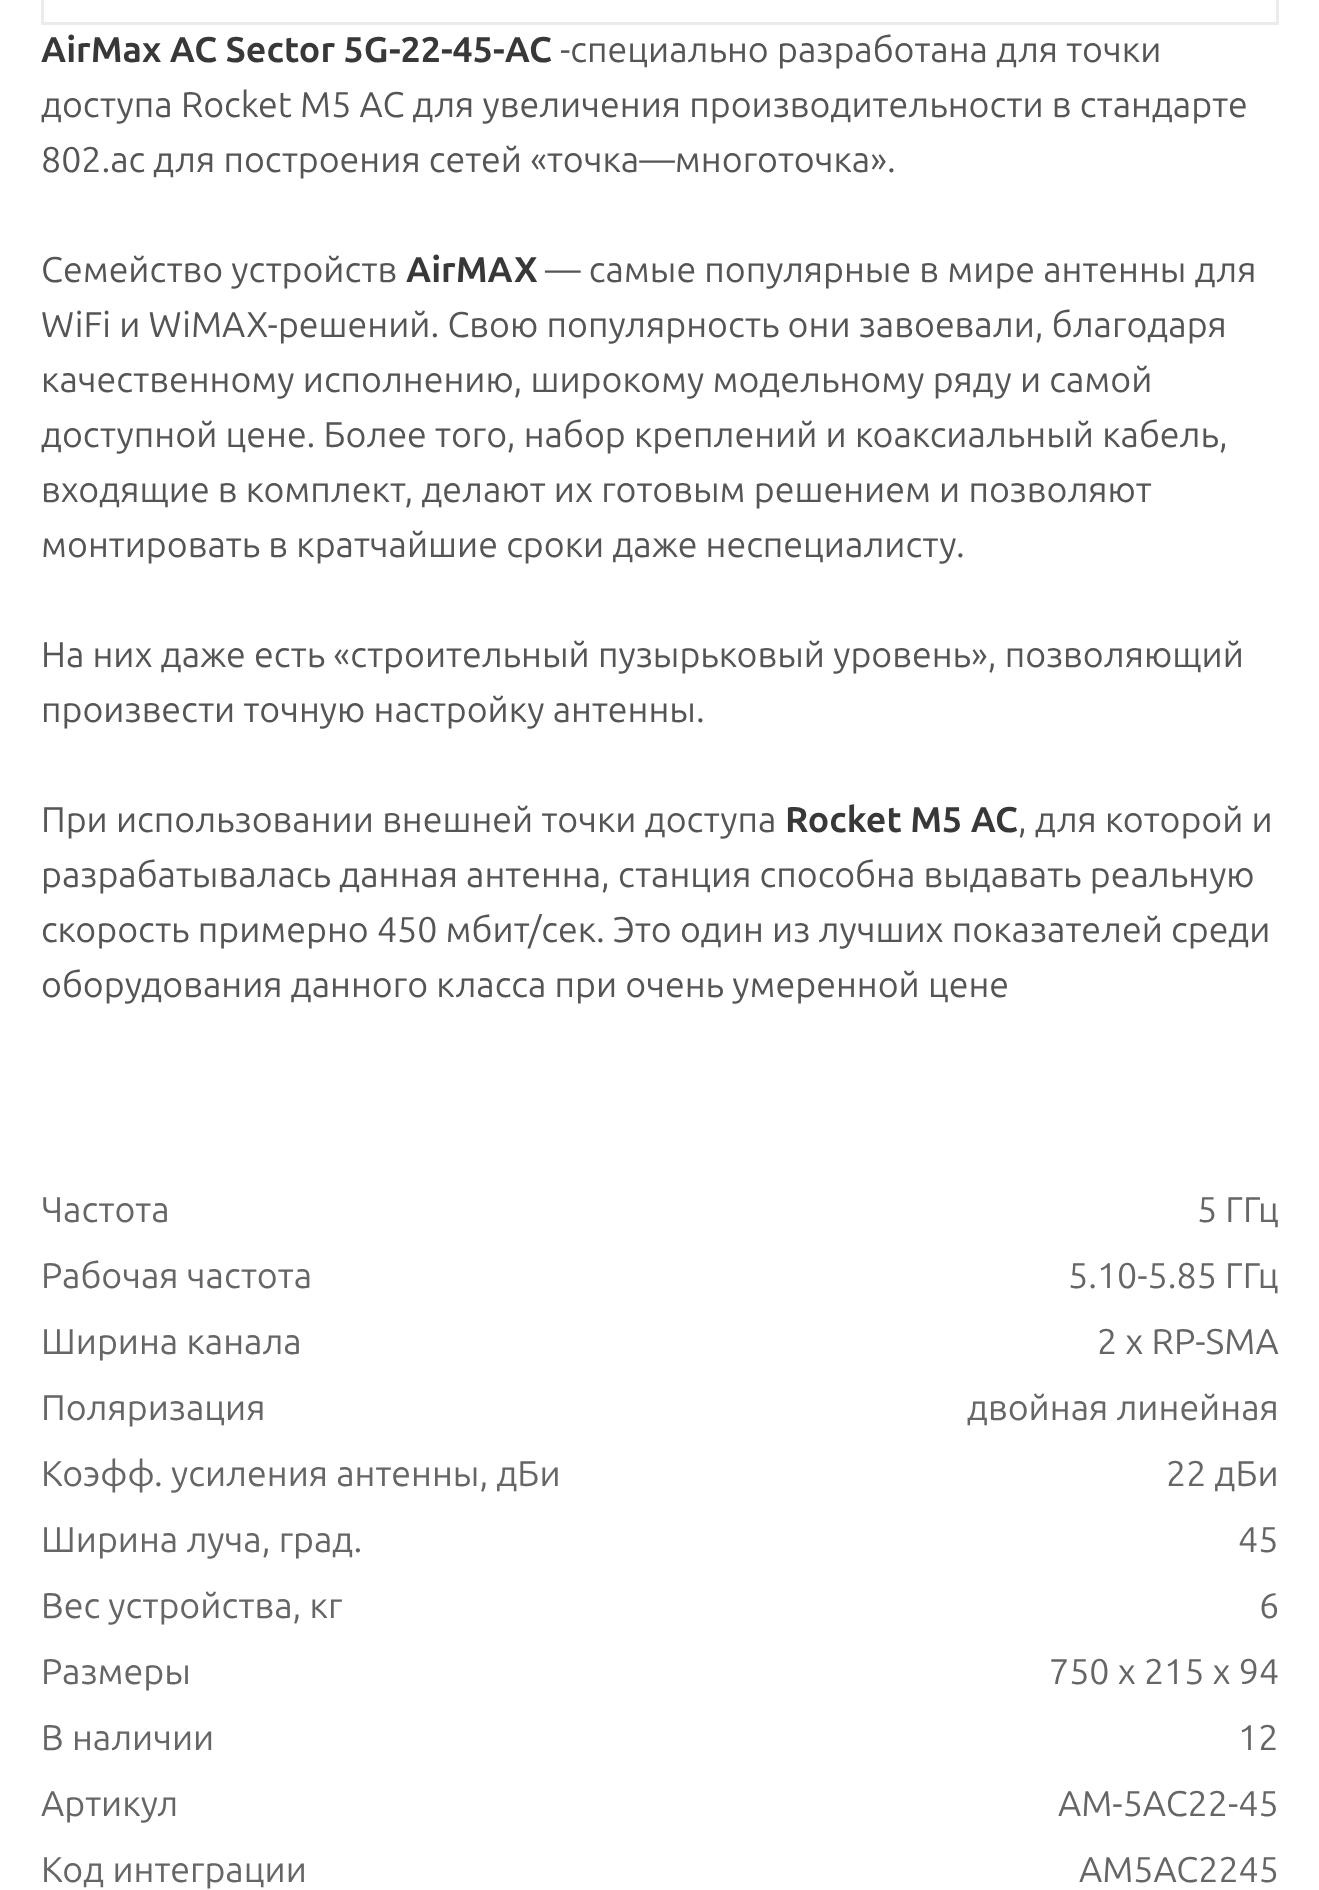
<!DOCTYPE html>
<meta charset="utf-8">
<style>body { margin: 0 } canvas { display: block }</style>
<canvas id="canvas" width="1319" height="1890"></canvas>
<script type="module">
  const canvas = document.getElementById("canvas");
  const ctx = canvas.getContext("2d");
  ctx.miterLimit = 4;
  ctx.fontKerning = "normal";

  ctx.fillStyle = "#ffffff";
  ctx.fillRect(0, 0, 1319, 1890);
  ctx.strokeStyle = "#eaebec";
  ctx.lineWidth = 3;
  ctx.strokeRect(42.5, -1.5, 1235, 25);
  ctx.font = "bold 35.75px Ubuntu";
  ctx.fillStyle = "#383838";
  ctx.fillText("AirMax AC Sector 5G-22-45-AC", 41, 62);
  ctx.font = "35.75px Ubuntu";
  ctx.fillStyle = "#555555";
  ctx.fillText("-cпециально разработана для точки", 560, 62);
  ctx.fillText("доступа Rocket M5 AC для увеличения производительности в стандарте", 41, 117);
  ctx.fillText("802.ac для построения сетей «точка—многоточка».", 41, 172);
  ctx.fillText("Семейство устройств", 41, 282);
  ctx.font = "bold 35.75px Ubuntu";
  ctx.fillStyle = "#383838";
  ctx.fillText("AirMAX", 406, 282);
  ctx.font = "35.75px Ubuntu";
  ctx.fillStyle = "#555555";
  ctx.fillText("— самые популярные в мире антенны для", 545, 282);
  ctx.fillText("WiFi и WiMAX-решений. Свою популярность они завоевали, благодаря", 41, 337);
  ctx.fillText("качественному исполнению, широкому модельному ряду и самой", 41, 392);
  ctx.fillText("доступной цене. Более того, набор креплений и коаксиальный кабель,", 41, 447);
  ctx.fillText("входящие в комплект, делают их готовым решением и позволяют", 41, 502);
  ctx.fillText("монтировать в кратчайшие сроки даже неспециалисту.", 41, 557);
  ctx.fillText("На них даже есть «строительный пузырьковый уровень», позволяющий", 41, 667);
  ctx.fillText("произвести точную настройку антенны.", 41, 722);
  ctx.fillText("При использовании внешней точки доступа", 41, 832);
  ctx.font = "bold 35.75px Ubuntu";
  ctx.fillStyle = "#383838";
  ctx.fillText("Rocket M5 AC", 785, 832);
  ctx.font = "35.75px Ubuntu";
  ctx.fillStyle = "#555555";
  ctx.fillText(", для которой и", 1018, 832);
  ctx.fillText("разрабатывалась данная антенна, станция способна выдавать реальную", 41, 887);
  ctx.fillText("скорость примерно 450 мбит/сек. Это один из лучших показателей среди", 41, 942);
  ctx.fillText("оборудования данного класса при очень умеренной цене", 41, 997);
  ctx.fillStyle = "#666666";
  ctx.fillText("Частота", 41, 1222);
  ctx.fillText("5 ГГц", 1197, 1222);
  ctx.fillText("Рабочая частота", 41, 1288);
  ctx.fillText("5.10-5.85 ГГц", 1068, 1288);
  ctx.fillText("Ширина канала", 41, 1354);
  ctx.fillText("2 x RP-SMA", 1097, 1354);
  ctx.fillText("Поляризация", 41, 1420);
  ctx.fillText("двойная линейная", 967, 1420);
  ctx.fillText("Коэфф. усиления антенны, дБи", 41, 1486);
  ctx.fillText("22 дБи", 1166, 1486);
  ctx.fillText("Ширина луча, град.", 41, 1552);
  ctx.fillText("45", 1238, 1552);
  ctx.fillText("Вес устройства, кг", 41, 1618);
  ctx.fillText("6", 1259, 1618);
  ctx.fillText("Размеры", 41, 1684);
  ctx.fillText("750 x 215 x 94", 1049, 1684);
  ctx.fillText("В наличии", 41, 1750);
  ctx.fillText("12", 1238, 1750);
  ctx.fillText("Артикул", 41, 1816);
  ctx.fillText("AM-5AC22-45", 1058, 1816);
  ctx.fillText("Код интеграции", 41, 1882);
  ctx.fillText("AM5AC2245", 1079, 1882);
</script>
